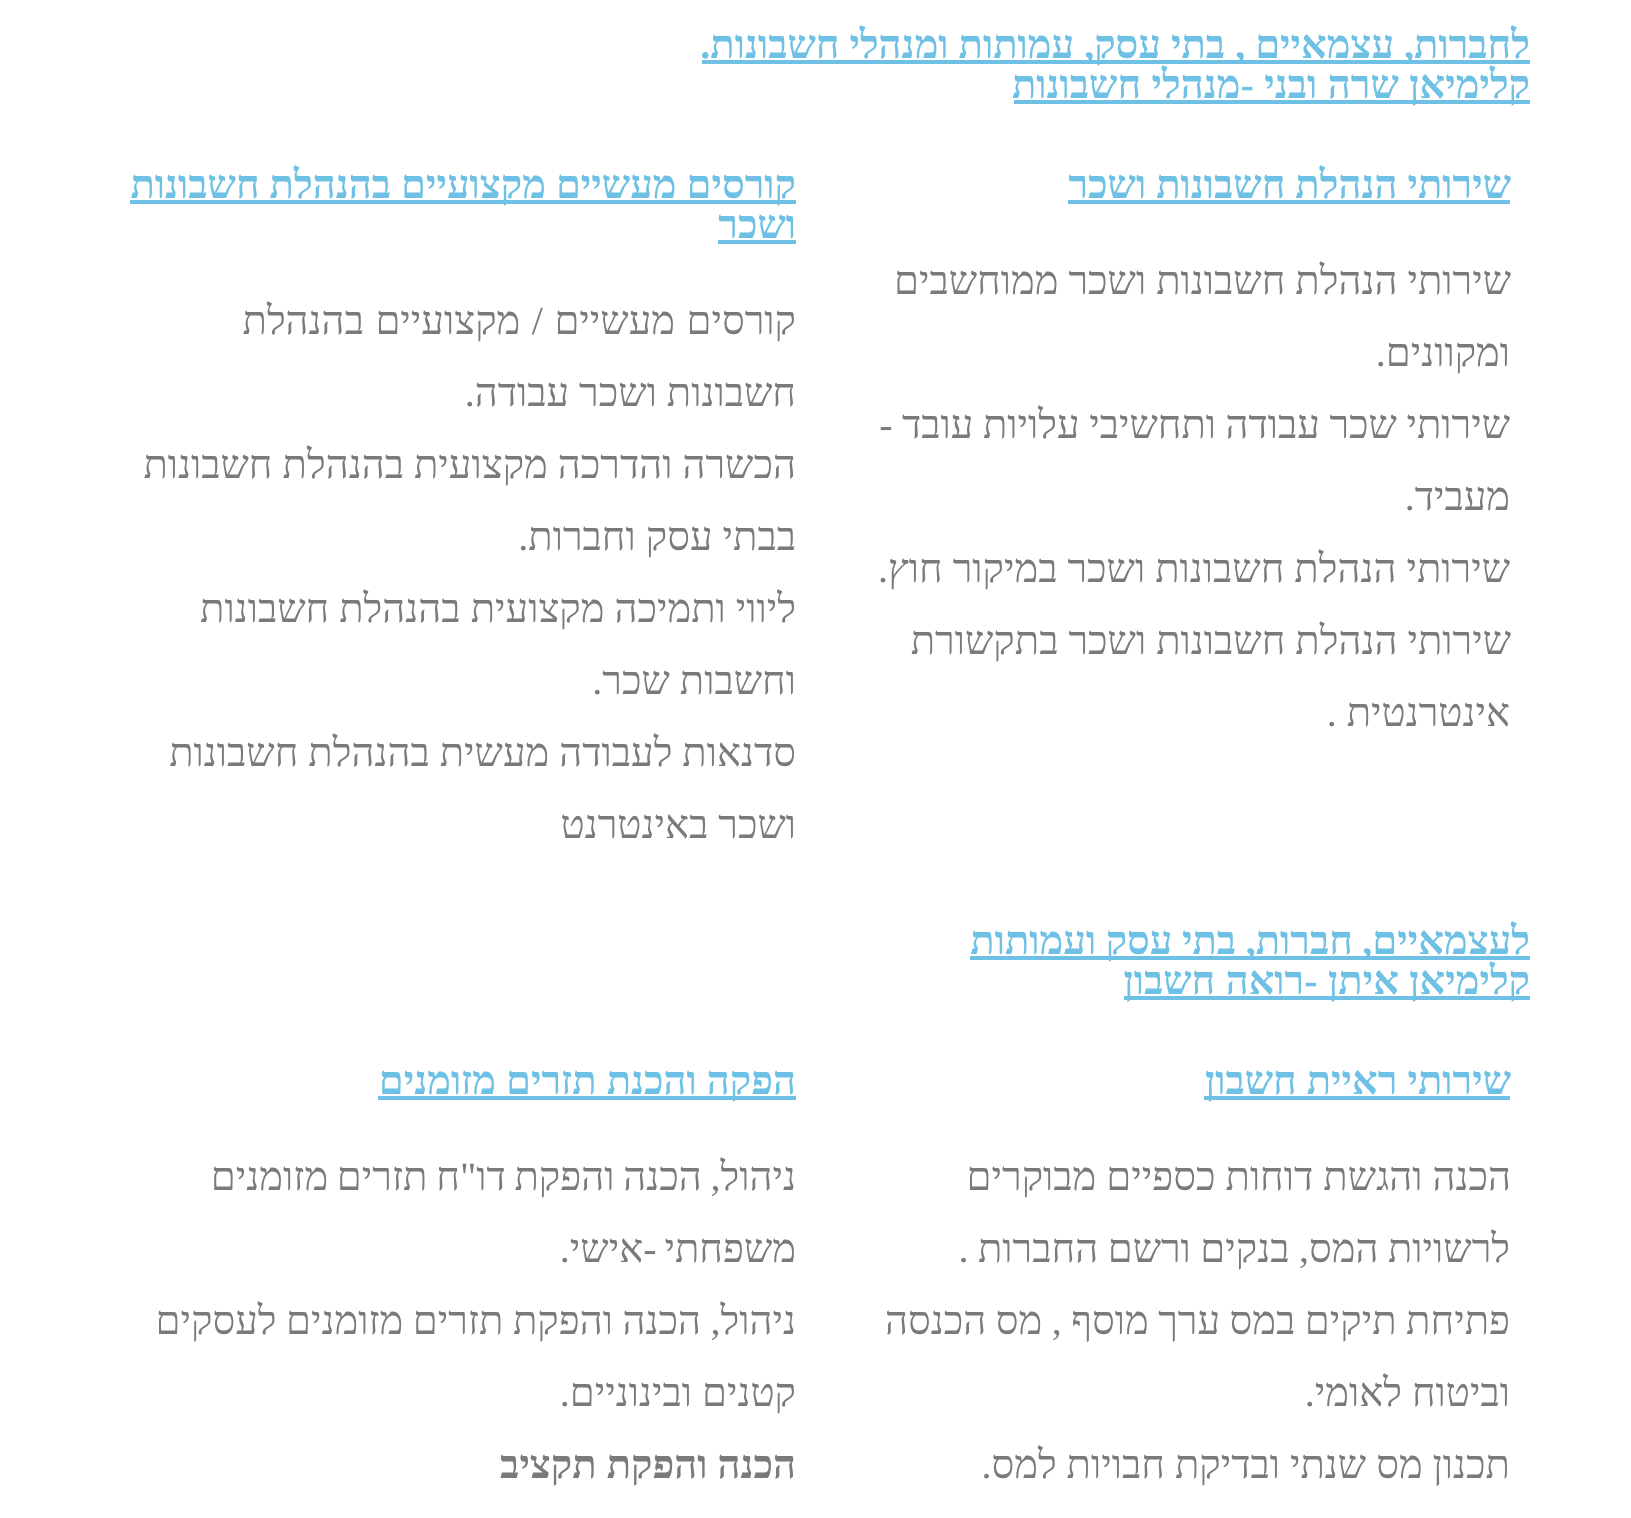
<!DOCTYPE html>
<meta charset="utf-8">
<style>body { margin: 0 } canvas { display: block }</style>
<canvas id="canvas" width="1631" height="1518"></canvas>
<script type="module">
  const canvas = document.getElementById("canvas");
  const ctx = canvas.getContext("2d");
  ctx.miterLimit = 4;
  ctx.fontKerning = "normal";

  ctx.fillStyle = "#ffffff";
  ctx.fillRect(0, 0, 1631, 1518);
  ctx.fillStyle = "#6ec1e4";
  ctx.fillRect(702, 60, 828, 4);
  ctx.direction = "rtl";
  ctx.font = "bold 40px Liberation Serif";
  ctx.fillText("לחברות, עצמאיים , בתי עסק, עמותות ומנהלי חשבונות.", 1530, 58);
  ctx.fillRect(1014, 100, 516, 4);
  ctx.wordSpacing = "0.5px";
  ctx.fillText("קלימיאן שרה ובני -מנהלי חשבונות", 1530, 98);
  ctx.wordSpacing = "0px";
  ctx.fillText("שירותי הנהלת חשבונות ושכר", 1511, 198);
  ctx.fillRect(1068, 200, 442, 4);
  ctx.font = "40px Liberation Serif";
  ctx.fillStyle = "#7a7a7a";
  ctx.fillText("שירותי הנהלת חשבונות ושכר ממוחשבים", 1511, 294);
  ctx.fillText("ומקוונים.", 1510, 366);
  ctx.wordSpacing = "-0.5px";
  ctx.fillText("שירותי שכר עבודה ותחשיבי עלויות עובד -", 1510, 438);
  ctx.wordSpacing = "0px";
  ctx.fillText("מעביד.", 1510, 510);
  ctx.fillText("שירותי הנהלת חשבונות ושכר במיקור חוץ.", 1510, 582);
  ctx.fillText("שירותי הנהלת חשבונות ושכר בתקשורת", 1511, 654);
  ctx.fillText("אינטרנטית .", 1510, 726);
  ctx.fillStyle = "#6ec1e4";
  ctx.fillRect(130, 200, 666, 4);
  ctx.font = "bold 40px Liberation Serif";
  ctx.fillText("קורסים מעשיים מקצועיים בהנהלת חשבונות", 796, 198);
  ctx.fillText("ושכר", 796, 238);
  ctx.fillRect(718, 240, 78, 4);
  ctx.wordSpacing = "1.5px";
  ctx.font = "40px Liberation Serif";
  ctx.fillStyle = "#7a7a7a";
  ctx.fillText("קורסים מעשיים / מקצועיים בהנהלת", 796, 334);
  ctx.wordSpacing = "0px";
  ctx.fillText("חשבונות ושכר עבודה.", 796, 406);
  ctx.fillText("הכשרה והדרכה מקצועית בהנהלת חשבונות", 796, 478);
  ctx.fillText("בבתי עסק וחברות.", 796, 550);
  ctx.fillText("ליווי ותמיכה מקצועית בהנהלת חשבונות", 796, 622);
  ctx.fillText("וחשבות שכר.", 796, 694);
  ctx.fillText("סדנאות לעבודה מעשית בהנהלת חשבונות", 796, 766);
  ctx.fillText("ושכר באינטרנט", 796, 838);
  ctx.fillStyle = "#6ec1e4";
  ctx.fillRect(970, 956, 560, 4);
  ctx.wordSpacing = "-0.5px";
  ctx.font = "bold 40px Liberation Serif";
  ctx.fillText("לעצמאיים, חברות, בתי עסק ועמותות", 1530, 954);
  ctx.fillRect(1124, 996, 406, 4);
  ctx.wordSpacing = "0.5px";
  ctx.fillText("קלימיאן איתן -רואה חשבון", 1530, 994);
  ctx.fillRect(1204, 1096, 306, 4);
  ctx.wordSpacing = "0px";
  ctx.fillText("שירותי ראיית חשבון", 1511, 1094);
  ctx.font = "40px Liberation Serif";
  ctx.fillStyle = "#7a7a7a";
  ctx.fillText("הכנה והגשת דוחות כספיים מבוקרים", 1511, 1190);
  ctx.wordSpacing = "-0.5px";
  ctx.fillText("לרשויות המס, בנקים ורשם החברות .", 1510, 1262);
  ctx.fillText("פתיחת תיקים במס ערך מוסף , מס הכנסה", 1510, 1334);
  ctx.wordSpacing = "0px";
  ctx.fillText("וביטוח לאומי.", 1510, 1406);
  ctx.fillText("תכנון מס שנתי ובדיקת חבויות למס.", 1510, 1478);
  ctx.fillStyle = "#6ec1e4";
  ctx.fillRect(378, 1096, 418, 4);
  ctx.font = "bold 40px Liberation Serif";
  ctx.fillText("הפקה והכנת תזרים מזומנים", 796, 1094);
  ctx.wordSpacing = "-1.25px";
  ctx.font = "40px Liberation Serif";
  ctx.fillStyle = "#7a7a7a";
  ctx.fillText("ניהול, הכנה והפקת דו\"ח תזרים מזומנים", 796, 1190);
  ctx.wordSpacing = "-2px";
  ctx.fillText("משפחתי -אישי.", 796, 1262);
  ctx.wordSpacing = "-0.5px";
  ctx.fillText("ניהול, הכנה והפקת תזרים מזומנים לעסקים", 796, 1334);
  ctx.wordSpacing = "0px";
  ctx.fillText("קטנים ובינוניים.", 796, 1406);
  ctx.font = "bold 40px Liberation Serif";
  ctx.fillText("הכנה והפקת תקציב", 796, 1478);
</script>
